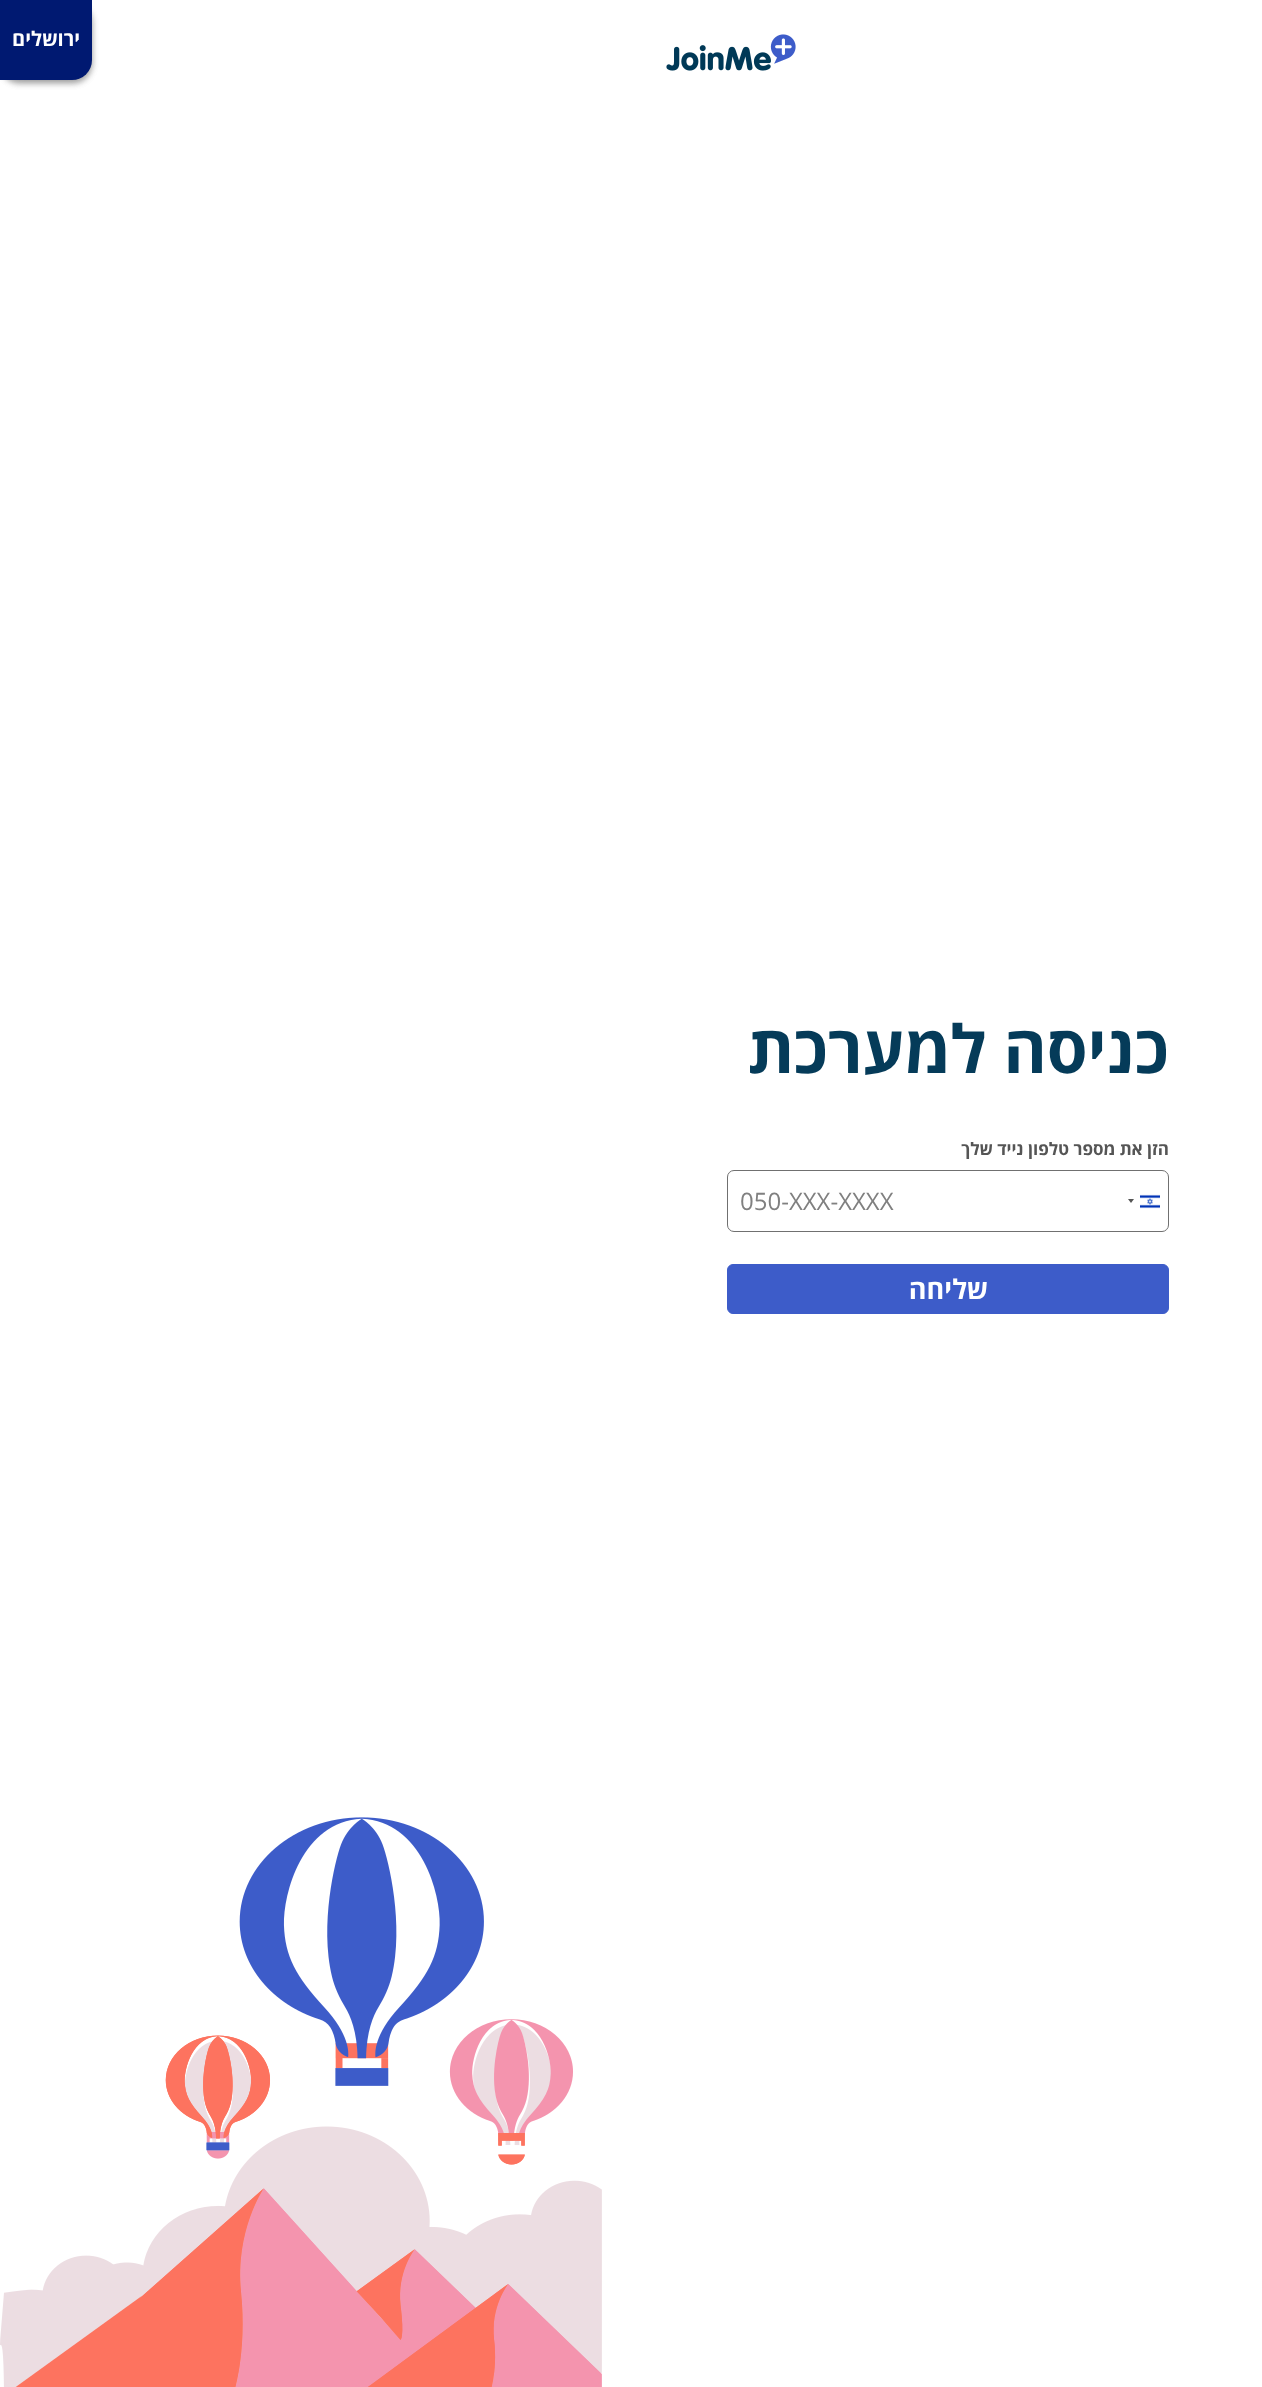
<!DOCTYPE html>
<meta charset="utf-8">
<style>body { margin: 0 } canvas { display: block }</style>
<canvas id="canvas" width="1262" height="2387"></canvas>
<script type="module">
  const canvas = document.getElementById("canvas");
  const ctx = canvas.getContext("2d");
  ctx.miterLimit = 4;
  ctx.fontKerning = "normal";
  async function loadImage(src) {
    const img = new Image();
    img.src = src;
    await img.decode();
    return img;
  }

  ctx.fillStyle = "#ffffff";
  ctx.fillRect(0, 0, 1262, 2387);
  ctx.drawImage(await loadImage("img1.png"), 666, 34, 130, 37);
  ctx.fillStyle = "rgba(0, 0, 0, 0.22)";
  ctx.filter = "blur(3px)";
  ctx.beginPath();
  ctx.roundRect(0, 3, 92, 80, 20);
  ctx.fill();
  ctx.filter = "none";
  ctx.filter = "blur(3px)";
  ctx.beginPath();
  ctx.roundRect(0, 3, 92, 80, 20);
  ctx.fill();
  ctx.filter = "none";
  ctx.fillStyle = "#001971";
  ctx.beginPath();
  ctx.roundRect(0, 0, 92, 80, [0, 0, 20, 0]);
  ctx.fill();
  ctx.direction = "rtl";
  ctx.font = "bold 20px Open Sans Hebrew";
  ctx.fillStyle = "#ffffff";
  ctx.fillText("ירושלים", 80, 46);
  ctx.font = "bold 66px Open Sans Hebrew";
  ctx.fillStyle = "#053b59";
  ctx.fillText("כניסה למערכת", 1169, 1073);
  ctx.font = "bold 17px Open Sans Hebrew";
  ctx.fillStyle = "#555555";
  ctx.fillText("הזן את מספר טלפון נייד שלך", 1169, 1155);
  ctx.beginPath();
  ctx.roundRect(727.5, 1170.5, 441, 61, 6.5);
  ctx.strokeStyle = "#707070";
  ctx.stroke();
  ctx.fillStyle = "#888888";
  ctx.filter = "blur(0.5px)";
  ctx.beginPath();
  ctx.rect(1140, 1194, 20, 15);
  ctx.fill();
  ctx.filter = "none";
  ctx.drawImage(await loadImage("img2.png"), 1140, 1194, 20, 15);
  ctx.fillStyle = "#555555";
  ctx.beginPath();
  ctx.moveTo(1128, 1199);
  ctx.lineTo(1134, 1199);
  ctx.lineTo(1131, 1203);
  ctx.closePath();
  ctx.fill();
  ctx.direction = "ltr";
  ctx.font = "24px Open Sans Hebrew";
  ctx.fillStyle = "#808080";
  ctx.fillText("050-XXX-XXXX", 740, 1210);
  ctx.fillStyle = "#3d5cc9";
  ctx.beginPath();
  ctx.roundRect(727.5, 1264.5, 441, 49, 5.5);
  ctx.fill();
  ctx.strokeStyle = "#3d5cc9";
  ctx.stroke();
  ctx.direction = "rtl";
  ctx.font = "bold 27px Open Sans Hebrew";
  ctx.fillStyle = "#ffffff";
  ctx.fillText("שליחה", 988, 1299);
  ctx.drawImage(await loadImage("img3.png"), 0, 1817, 602, 570);
</script>
